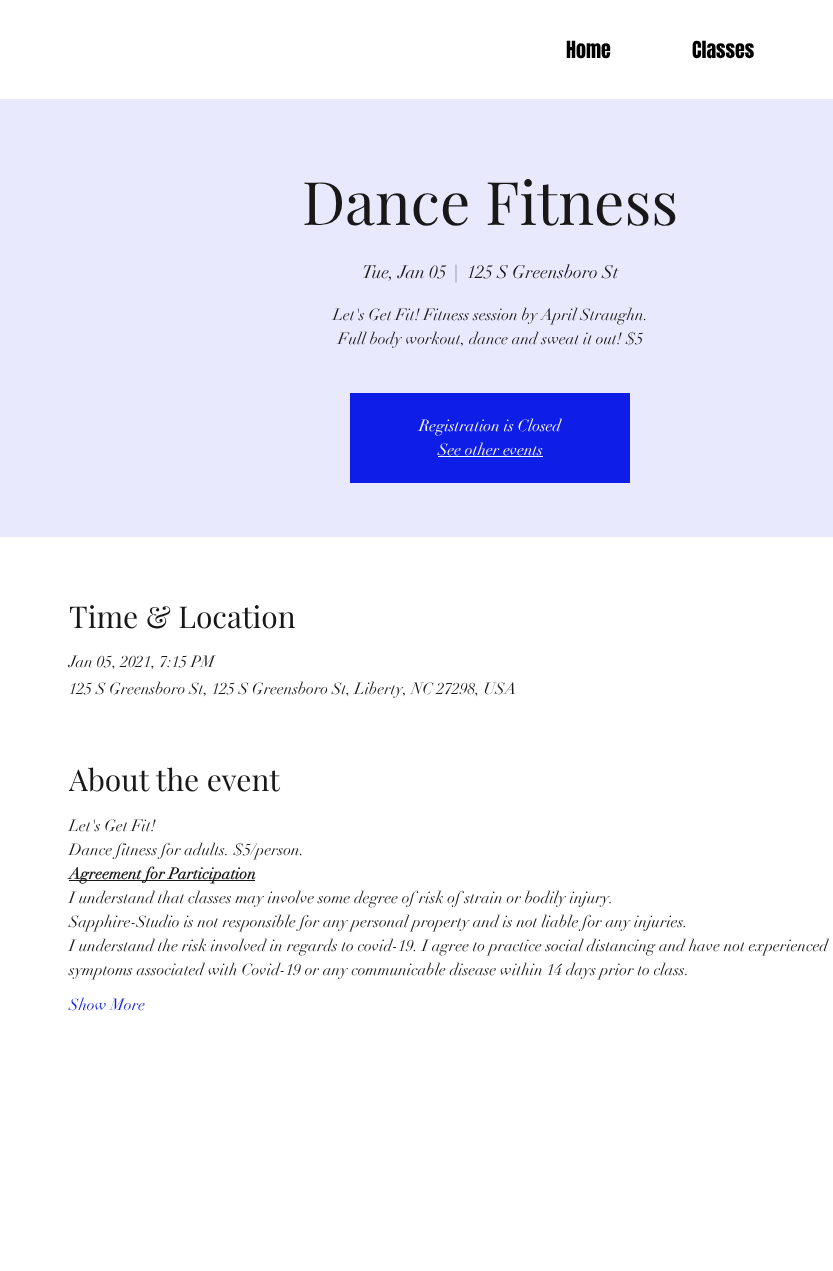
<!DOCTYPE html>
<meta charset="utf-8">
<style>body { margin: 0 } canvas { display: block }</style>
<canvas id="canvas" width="833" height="1271"></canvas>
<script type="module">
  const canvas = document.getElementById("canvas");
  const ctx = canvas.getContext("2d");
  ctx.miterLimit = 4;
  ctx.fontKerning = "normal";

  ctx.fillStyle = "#ffffff";
  ctx.fillRect(0, 0, 833, 1271);
  ctx.font = "20px Anton";
  ctx.fillStyle = "#000000";
  ctx.fillText("Home", 566, 58);
  ctx.fillText("Classes", 692, 58);
  ctx.fillStyle = "#e8e9fd";
  ctx.fillRect(0, 99, 833, 438);
  ctx.font = "60px Playfair Display";
  ctx.fillStyle = "#181818";
  ctx.fillText("Dance Fitness", 302, 225);
  ctx.font = "18px didot";
  ctx.fillText("Tue, Jan 05", 362, 278);
  ctx.fillText("|", 454, 278);
  ctx.fillText("125 S Greensboro St", 467, 278);
  ctx.font = "16px didot";
  ctx.fillText("Let's Get Fit! Fitness session by April Straughn.", 333, 320);
  ctx.fillText("Full body workout, dance and sweat it out! $5", 338, 344);
  ctx.fillStyle = "#0f1ee6";
  ctx.fillRect(350, 393, 280, 90);
  ctx.fillStyle = "#ffffff";
  ctx.fillText("Registration is Closed", 419, 431);
  ctx.fillText("See other events", 438, 455);
  ctx.fillRect(438, 456, 105, 1);
  ctx.font = "30px Playfair Display";
  ctx.fillStyle = "#181818";
  ctx.fillText("Time & Location", 69, 628);
  ctx.font = "16px didot";
  ctx.fillText("Jan 05, 2021, 7:15 PM", 69, 667);
  ctx.fillText("125 S Greensboro St, 125 S Greensboro St, Liberty, NC 27298, USA", 69, 694);
  ctx.font = "30px Playfair Display";
  ctx.fillText("About the event", 69, 791);
  ctx.font = "16px didot";
  ctx.fillText("Let's Get Fit!", 69, 831);
  ctx.fillText("Dance fitness for adults. $5/person.", 69, 855);
  ctx.fillRect(69, 880, 186, 1);
  ctx.font = "bold 16px didot";
  ctx.fillText("Agreement for Participation", 69, 879);
  ctx.font = "16px didot";
  ctx.fillText("I understand that classes may involve some degree of risk of strain or bodily injury.", 69, 903);
  ctx.fillText("Sapphire-Studio is not responsible for any personal property and is not liable for any injuries.", 69, 927);
  ctx.fillText("I understand the risk involved in regards to covid-19. I agree to practice social distancing and have not experienced", 69, 951);
  ctx.fillText("symptoms associated with Covid-19 or any communicable disease within 14 days prior to class.", 69, 975);
  ctx.fillStyle = "#0f1ee6";
  ctx.fillText("Show More", 69, 1010);
</script>
